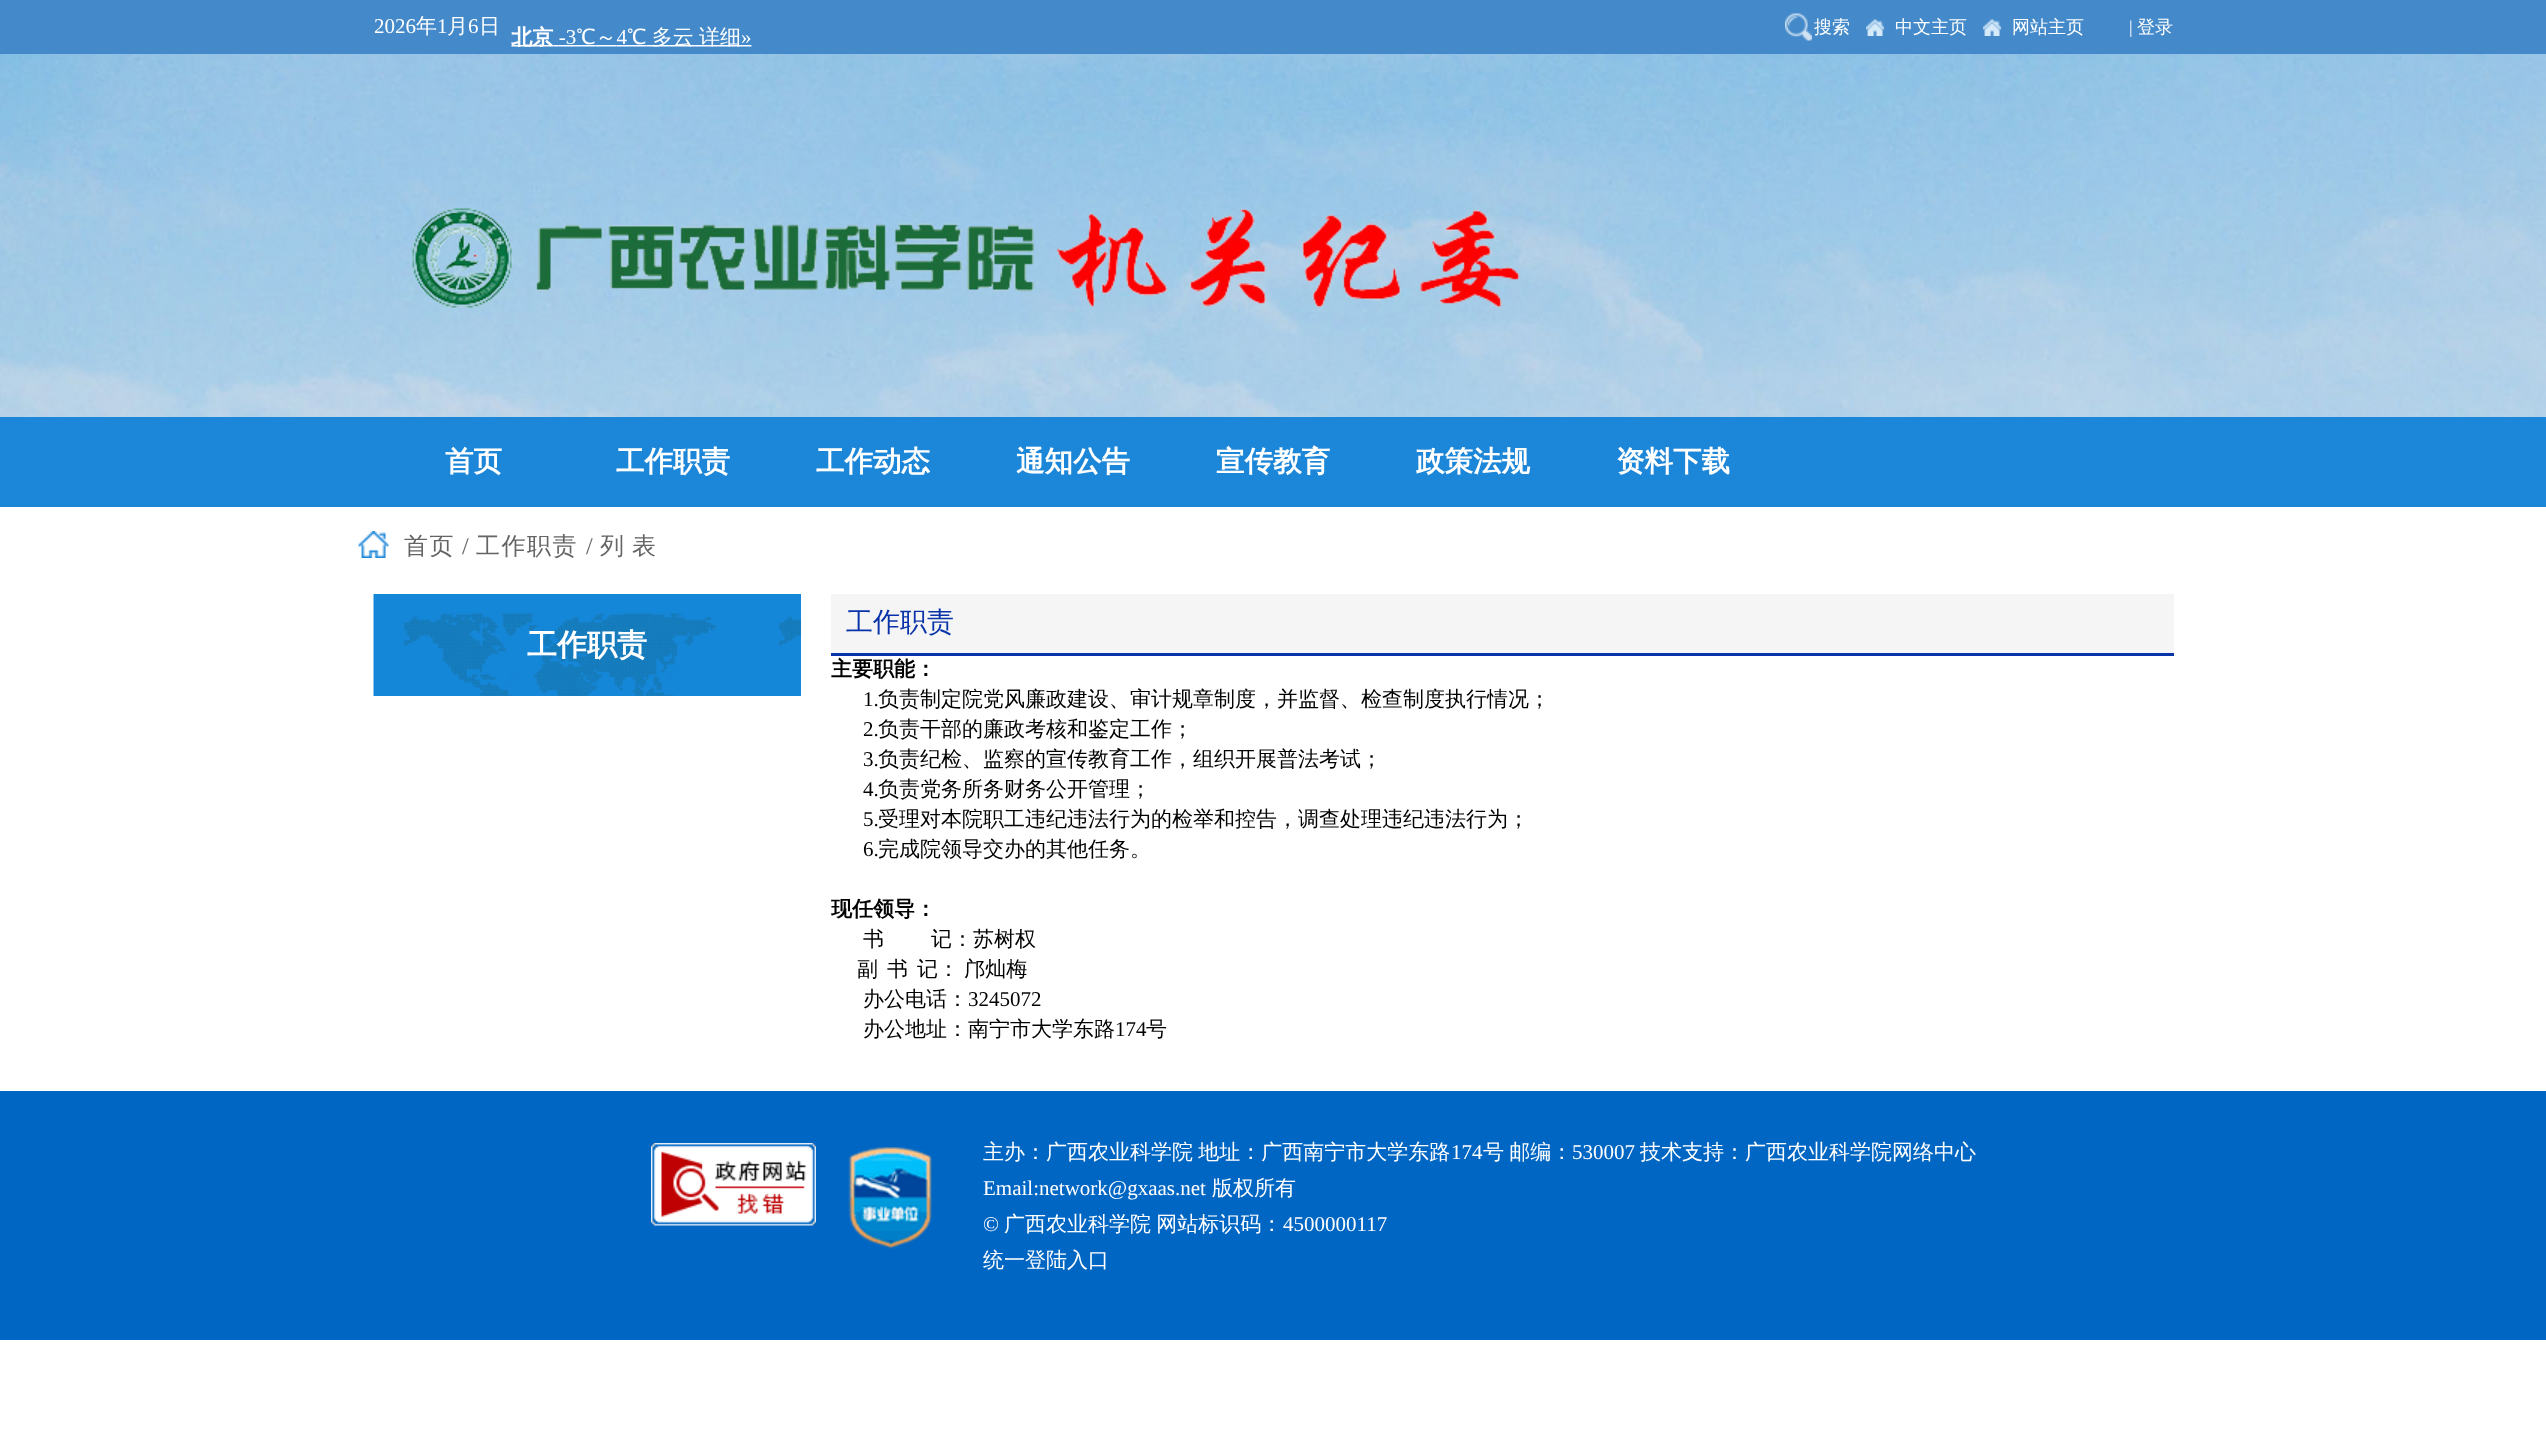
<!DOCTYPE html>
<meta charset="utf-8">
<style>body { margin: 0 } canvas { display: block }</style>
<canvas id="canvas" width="2546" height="1451"></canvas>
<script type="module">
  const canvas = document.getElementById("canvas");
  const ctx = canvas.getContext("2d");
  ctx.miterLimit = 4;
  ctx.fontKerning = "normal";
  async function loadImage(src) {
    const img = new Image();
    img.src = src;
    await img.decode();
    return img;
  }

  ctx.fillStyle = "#ffffff";
  ctx.fillRect(0, 0, 2546, 1451);
  ctx.drawImage(await loadImage("img1.png"), 0, 54, 2546, 363);
  ctx.fillStyle = "#448aca";
  ctx.fillRect(0, 0, 2546, 54);
  ctx.font = "21px Liberation Serif";
  ctx.fillStyle = "#ffffff";
  ctx.fillText("2026", 374, 33);
  ctx.font = "500 21px WenQuanYi Zen Hei";
  ctx.fillText("年", 416, 33);
  ctx.font = "21px Liberation Serif";
  ctx.fillText("1", 437, 33);
  ctx.font = "500 21px WenQuanYi Zen Hei";
  ctx.fillText("月", 447, 33);
  ctx.font = "21px Liberation Serif";
  ctx.fillText("6", 468, 33);
  ctx.font = "500 21px WenQuanYi Zen Hei";
  ctx.fillText("日", 479, 33);
  ctx.drawImage(await loadImage("img2.png"), 511, 25, 241, 22);
  ctx.drawImage(await loadImage("img3.png"), 1785, 13, 27, 28);
  ctx.font = "500 18px WenQuanYi Zen Hei";
  ctx.fillText("搜索", 1814, 33);
  ctx.drawImage(await loadImage("img4.png"), 1866, 19, 18, 17);
  ctx.fillText("中文主页", 1895, 33);
  ctx.drawImage(await loadImage("img4.png"), 1983, 19, 18, 17);
  ctx.fillText("网站主页", 2012, 33);
  ctx.font = "18px Liberation Serif";
  ctx.fillText("|", 2129, 33);
  ctx.font = "500 18px WenQuanYi Zen Hei";
  ctx.fillText("登录", 2137, 33);
  ctx.drawImage(await loadImage("img5.png"), 412, 207, 1108, 189);
  ctx.fillStyle = "#1c86d8";
  ctx.fillRect(0, 417, 2546, 90);
  ctx.font = "bold 28.5px WenQuanYi Zen Hei";
  ctx.fillStyle = "#ffffff";
  ctx.fillText("首页", 445, 471);
  ctx.fillText("工作职责", 616, 471);
  ctx.fillText("工作动态", 816, 471);
  ctx.fillText("通知公告", 1016, 471);
  ctx.fillText("宣传教育", 1216, 471);
  ctx.fillText("政策法规", 1416, 471);
  ctx.fillText("资料下载", 1616, 471);
  ctx.drawImage(await loadImage("img6.png"), 358, 531, 31, 27);
  ctx.letterSpacing = "1.5px";
  ctx.font = "500 24px WenQuanYi Zen Hei";
  ctx.fillStyle = "#656565";
  ctx.fillText("首页", 404, 554);
  ctx.letterSpacing = "8px";
  ctx.font = "24px Liberation Serif";
  ctx.fillText("/", 462, 554);
  ctx.letterSpacing = "1.5px";
  ctx.font = "500 24px WenQuanYi Zen Hei";
  ctx.fillText("工作职责", 476, 554);
  ctx.letterSpacing = "8px";
  ctx.font = "24px Liberation Serif";
  ctx.fillText("/", 586, 554);
  ctx.font = "500 24px WenQuanYi Zen Hei";
  ctx.fillText("列表", 600, 554);
  ctx.drawImage(await loadImage("img7.png"), 373, 594, 428, 102);
  ctx.letterSpacing = "0px";
  ctx.font = "bold 30px WenQuanYi Zen Hei";
  ctx.fillStyle = "#ffffff";
  ctx.fillText("工作职责", 527, 655);
  ctx.fillStyle = "#f5f5f5";
  ctx.fillRect(831, 594, 1343, 59);
  ctx.fillStyle = "#0933a9";
  ctx.fillRect(831, 653, 1343, 3);
  ctx.font = "500 27px WenQuanYi Zen Hei";
  ctx.fillText("工作职责", 846, 631);
  ctx.font = "bold 21px WenQuanYi Zen Hei";
  ctx.fillStyle = "#000000";
  ctx.fillText("主要职能：", 831, 676);
  ctx.font = "21px Liberation Serif";
  ctx.fillText("1.", 863, 706);
  ctx.font = "500 21px WenQuanYi Zen Hei";
  ctx.fillText("负责制定院党风廉政建设、审计规章制度，并监督、检查制度执行情况；", 878, 706);
  ctx.font = "21px Liberation Serif";
  ctx.fillText("2.", 863, 736);
  ctx.font = "500 21px WenQuanYi Zen Hei";
  ctx.fillText("负责干部的廉政考核和鉴定工作；", 878, 736);
  ctx.font = "21px Liberation Serif";
  ctx.fillText("3.", 863, 766);
  ctx.font = "500 21px WenQuanYi Zen Hei";
  ctx.fillText("负责纪检、监察的宣传教育工作，组织开展普法考试；", 878, 766);
  ctx.font = "21px Liberation Serif";
  ctx.fillText("4.", 863, 796);
  ctx.font = "500 21px WenQuanYi Zen Hei";
  ctx.fillText("负责党务所务财务公开管理；", 878, 796);
  ctx.font = "21px Liberation Serif";
  ctx.fillText("5.", 863, 826);
  ctx.font = "500 21px WenQuanYi Zen Hei";
  ctx.fillText("受理对本院职工违纪违法行为的检举和控告，调查处理违纪违法行为；", 878, 826);
  ctx.font = "21px Liberation Serif";
  ctx.fillText("6.", 863, 856);
  ctx.font = "500 21px WenQuanYi Zen Hei";
  ctx.fillText("完成院领导交办的其他任务。", 878, 856);
  ctx.font = "bold 21px WenQuanYi Zen Hei";
  ctx.fillText("现任领导：", 831, 916);
  ctx.font = "500 21px WenQuanYi Zen Hei";
  ctx.fillText("书", 863, 946);
  ctx.fillText("记：苏树权", 931, 946);
  ctx.fillText("副", 857, 976);
  ctx.fillText("书", 887, 976);
  ctx.wordSpacing = "-1px";
  ctx.fillText("记： 邝灿梅", 917, 976);
  ctx.wordSpacing = "0px";
  ctx.fillText("办公电话：", 863, 1006);
  ctx.font = "21px Liberation Serif";
  ctx.fillText("3245072", 968, 1006);
  ctx.font = "500 21px WenQuanYi Zen Hei";
  ctx.fillText("办公地址：南宁市大学东路", 863, 1036);
  ctx.font = "21px Liberation Serif";
  ctx.fillText("174", 1115, 1036);
  ctx.font = "500 21px WenQuanYi Zen Hei";
  ctx.fillText("号", 1146, 1036);
  ctx.fillStyle = "#0066c3";
  ctx.fillRect(0, 1091, 2546, 249);
  ctx.drawImage(await loadImage("img8.png"), 651, 1143, 165, 83);
  ctx.drawImage(await loadImage("img9.png"), 848, 1147, 84, 102);
  ctx.wordSpacing = "-1px";
  ctx.fillStyle = "#ffffff";
  ctx.fillText("主办：广西农业科学院 地址：广西南宁市大学东路", 983, 1159);
  ctx.wordSpacing = "0px";
  ctx.font = "21px Liberation Serif";
  ctx.fillText("174", 1451, 1159);
  ctx.wordSpacing = "-1px";
  ctx.font = "500 21px WenQuanYi Zen Hei";
  ctx.fillText("号 邮编：", 1483, 1159);
  ctx.wordSpacing = "0px";
  ctx.font = "21px Liberation Serif";
  ctx.fillText("530007", 1572, 1159);
  ctx.font = "500 21px WenQuanYi Zen Hei";
  ctx.fillText("技术支持：广西农业科学院网络中心", 1640, 1159);
  ctx.font = "21px Liberation Serif";
  ctx.fillText("Email:network@gxaas.net", 983, 1195);
  ctx.font = "500 21px WenQuanYi Zen Hei";
  ctx.fillText("版权所有", 1212, 1195);
  ctx.font = "21px Liberation Serif";
  ctx.fillText("©", 983, 1231);
  ctx.wordSpacing = "-1px";
  ctx.font = "500 21px WenQuanYi Zen Hei";
  ctx.fillText("广西农业科学院 网站标识码：", 1004, 1231);
  ctx.wordSpacing = "0px";
  ctx.font = "21px Liberation Serif";
  ctx.fillText("4500000117", 1283, 1231);
  ctx.font = "500 21px WenQuanYi Zen Hei";
  ctx.fillText("统一登陆入口", 983, 1267);
</script>
